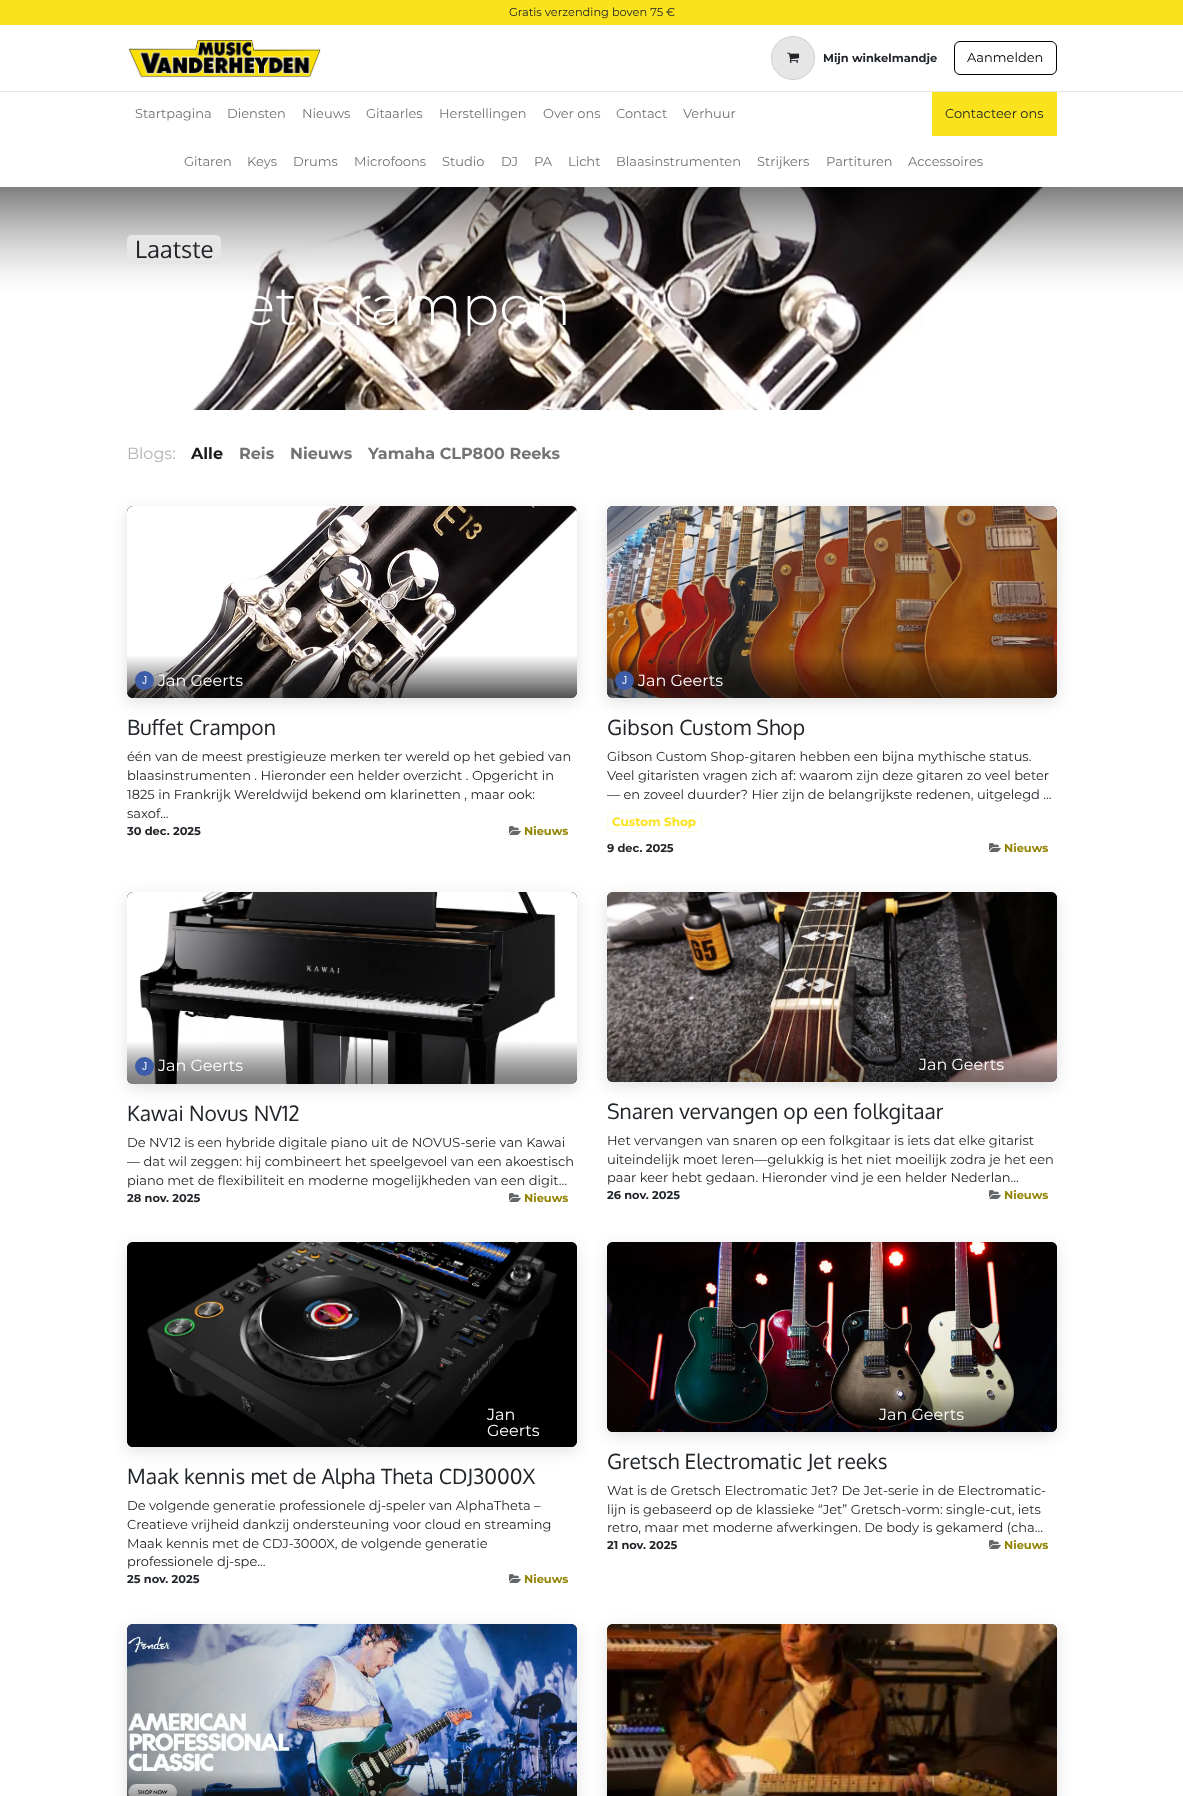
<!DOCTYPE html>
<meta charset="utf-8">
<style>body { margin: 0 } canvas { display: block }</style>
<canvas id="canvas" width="1183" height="1796"></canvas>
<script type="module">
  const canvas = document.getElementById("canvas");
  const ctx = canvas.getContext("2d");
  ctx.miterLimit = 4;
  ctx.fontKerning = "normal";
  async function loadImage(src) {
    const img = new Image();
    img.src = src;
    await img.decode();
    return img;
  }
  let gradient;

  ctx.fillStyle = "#ffffff";
  ctx.fillRect(0, 0, 1183, 1796);
  ctx.fillStyle = "#fae21c";
  ctx.fillRect(0, 0, 1183, 25);
  ctx.font = "11.4px Montserrat";
  ctx.fillStyle = "#212529";
  ctx.fillText("Gratis verzending boven 75 €", 509, 16);
  ctx.drawImage(await loadImage("img1.png"), 129, 40, 192, 38);
  ctx.fillStyle = "#e6e6e6";
  ctx.beginPath();
  ctx.arc(793, 58, 22, 0, Math.PI * 2);
  ctx.fill();
  ctx.beginPath();
  ctx.arc(793, 58, 21.5, 0, Math.PI * 2);
  ctx.strokeStyle = "rgba(0, 0, 0, 0.1)";
  ctx.stroke();
  ctx.drawImage(await loadImage("img2.png"), 787, 52, 13, 11);
  ctx.font = "bold 11.4px Montserrat";
  ctx.fillStyle = "#212529";
  ctx.fillText("Mijn winkelmandje", 823, 62);
  ctx.beginPath();
  ctx.roundRect(954.5, 41.5, 102, 33, 5.5);
  ctx.strokeStyle = "#020202";
  ctx.stroke();
  ctx.font = "13px Montserrat";
  ctx.fillStyle = "#020202";
  ctx.fillText("Aanmelden", 967, 62);
  ctx.fillStyle = "#e6e6e6";
  ctx.fillRect(0, 91, 1183, 1);
  ctx.fillStyle = "#737373";
  ctx.fillText("Startpagina", 135, 118);
  ctx.fillText("Diensten", 227, 118);
  ctx.fillText("Nieuws", 302, 118);
  ctx.fillText("Gitaarles", 366, 118);
  ctx.fillText("Herstellingen", 439, 118);
  ctx.fillText("Over ons", 543, 118);
  ctx.fillText("Contact", 616, 118);
  ctx.fillText("Verhuur", 683, 118);
  ctx.fillStyle = "#fae21c";
  ctx.fillRect(932, 92, 125, 44);
  ctx.fillStyle = "#212529";
  ctx.fillText("Contacteer ons", 945, 118);
  ctx.fillStyle = "#737373";
  ctx.fillText("Gitaren", 184, 166);
  ctx.fillText("Keys", 247, 166);
  ctx.fillText("Drums", 293, 166);
  ctx.fillText("Microfoons", 354, 166);
  ctx.fillText("Studio", 442, 166);
  ctx.fillText("DJ", 501, 166);
  ctx.fillText("PA", 534, 166);
  ctx.fillText("Licht", 568, 166);
  ctx.fillText("Blaasinstrumenten", 616, 166);
  ctx.fillText("Strijkers", 757, 166);
  ctx.fillText("Partituren", 826, 166);
  ctx.fillText("Accessoires", 908, 166);
  ctx.drawImage(await loadImage("img3.png"), 0, 187, 1183, 223);
  ctx.fillStyle = "#e6e6e6";
  ctx.beginPath();
  ctx.roundRect(127, 235, 94, 29, 5);
  ctx.fill();
  ctx.font = "24px Oxygen";
  ctx.fillStyle = "#212529";
  ctx.fillText("Laatste", 135, 258);
  ctx.font = "300 55.5px Montserrat";
  ctx.fillStyle = "#ffffff";
  ctx.fillText("et Crampon", 242, 325);
  ctx.font = "16px Montserrat";
  ctx.fillStyle = "#b3b3b3";
  ctx.fillText("Blogs:", 127, 459);
  ctx.font = "bold 16px Montserrat";
  ctx.fillStyle = "#1a1a1a";
  ctx.fillText("Alle", 191, 459);
  ctx.fillStyle = "#737373";
  ctx.fillText("Reis", 239, 459);
  ctx.fillText("Nieuws", 290, 459);
  ctx.fillText("Yamaha CLP800 Reeks", 368, 459);
  ctx.fillStyle = "rgba(0, 0, 0, 0.12)";
  ctx.filter = "blur(8px)";
  ctx.beginPath();
  ctx.roundRect(127, 510, 450, 192, 6);
  ctx.fill();
  ctx.filter = "none";
  ctx.fillStyle = "#020202";
  ctx.beginPath();
  ctx.roundRect(127, 506, 450, 192, 6);
  ctx.fill();
  ctx.drawImage(await loadImage("img4.png"), 127, 506, 450, 192);
  gradient = ctx.createLinearGradient(352, 655, 352, 698);
  gradient.addColorStop(0, "rgba(0, 0, 0, 0)");
  gradient.addColorStop(0.19, "rgba(0, 0, 0, 0.13)");
  gradient.addColorStop(0.34, "rgba(0, 0, 0, 0.23)");
  gradient.addColorStop(0.47, "rgba(0, 0, 0, 0.31)");
  gradient.addColorStop(0.56, "rgba(0, 0, 0, 0.36)");
  gradient.addColorStop(0.65, "rgba(0, 0, 0, 0.4)");
  gradient.addColorStop(0.73, "rgba(0, 0, 0, 0.43)");
  gradient.addColorStop(0.8, "rgba(0, 0, 0, 0.46)");
  gradient.addColorStop(0.86, "rgba(0, 0, 0, 0.48)");
  gradient.addColorStop(0.91, "rgba(0, 0, 0, 0.49)");
  gradient.addColorStop(0.95, "rgba(0, 0, 0, 0.49)");
  gradient.addColorStop(0.98, "rgba(0, 0, 0, 0.5)");
  gradient.addColorStop(1, "rgba(0, 0, 0, 0.5)");
  ctx.fillStyle = gradient;
  ctx.beginPath();
  ctx.roundRect(127, 655, 450, 43, [0, 0, 6, 6]);
  ctx.fill();
  ctx.drawImage(await loadImage("img5.png"), 135, 671, 19, 19);
  ctx.font = "16px Montserrat";
  ctx.fillStyle = "#ffffff";
  ctx.fillText("Jan Geerts", 158, 686);
  ctx.font = "21px Oxygen";
  ctx.fillStyle = "#212529";
  ctx.fillText("Buffet Crampon", 127, 735);
  ctx.font = "13px Montserrat";
  ctx.fillText("één van de meest prestigieuze merken ter wereld op het gebied van", 127, 761);
  ctx.fillText("blaasinstrumenten . Hieronder een helder overzicht . Opgericht in", 127, 780);
  ctx.fillText("1825 in Frankrijk Wereldwijd bekend om klarinetten , maar ook:", 127, 799);
  ctx.fillText("saxof...", 127, 818);
  ctx.font = "bold 11.4px Montserrat";
  ctx.fillText("30 dec. 2025", 127, 835);
  ctx.drawImage(await loadImage("img6.png"), 509, 826, 12, 9);
  ctx.fillStyle = "#938403";
  ctx.fillText("Nieuws", 524, 835);
  ctx.fillStyle = "rgba(0, 0, 0, 0.12)";
  ctx.filter = "blur(8px)";
  ctx.beginPath();
  ctx.roundRect(607, 510, 450, 192, 6);
  ctx.fill();
  ctx.filter = "none";
  ctx.fillStyle = "#020202";
  ctx.beginPath();
  ctx.roundRect(607, 506, 450, 192, 6);
  ctx.fill();
  ctx.drawImage(await loadImage("img7.png"), 607, 506, 450, 192);
  gradient = ctx.createLinearGradient(832, 655, 832, 698);
  gradient.addColorStop(0, "rgba(0, 0, 0, 0)");
  gradient.addColorStop(0.19, "rgba(0, 0, 0, 0.13)");
  gradient.addColorStop(0.34, "rgba(0, 0, 0, 0.23)");
  gradient.addColorStop(0.47, "rgba(0, 0, 0, 0.31)");
  gradient.addColorStop(0.56, "rgba(0, 0, 0, 0.36)");
  gradient.addColorStop(0.65, "rgba(0, 0, 0, 0.4)");
  gradient.addColorStop(0.73, "rgba(0, 0, 0, 0.43)");
  gradient.addColorStop(0.8, "rgba(0, 0, 0, 0.46)");
  gradient.addColorStop(0.86, "rgba(0, 0, 0, 0.48)");
  gradient.addColorStop(0.91, "rgba(0, 0, 0, 0.49)");
  gradient.addColorStop(0.95, "rgba(0, 0, 0, 0.49)");
  gradient.addColorStop(0.98, "rgba(0, 0, 0, 0.5)");
  gradient.addColorStop(1, "rgba(0, 0, 0, 0.5)");
  ctx.fillStyle = gradient;
  ctx.beginPath();
  ctx.roundRect(607, 655, 450, 43, [0, 0, 6, 6]);
  ctx.fill();
  ctx.drawImage(await loadImage("img8.png"), 615, 671, 19, 19);
  ctx.font = "16px Montserrat";
  ctx.fillStyle = "#ffffff";
  ctx.fillText("Jan Geerts", 638, 686);
  ctx.font = "21px Oxygen";
  ctx.fillStyle = "#212529";
  ctx.fillText("Gibson Custom Shop", 607, 735);
  ctx.font = "13px Montserrat";
  ctx.fillText("Gibson Custom Shop-gitaren hebben een bijna mythische status.", 607, 761);
  ctx.fillText("Veel gitaristen vragen zich af: waarom zijn deze gitaren zo veel beter", 607, 780);
  ctx.fillText("— en zoveel duurder? Hier zijn de belangrijkste redenen, uitgelegd ...", 607, 799);
  ctx.beginPath();
  ctx.roundRect(607.5, 812.5, 94, 19, 5.5);
  ctx.strokeStyle = "#fefbdd";
  ctx.stroke();
  ctx.font = "bold 12px Montserrat";
  ctx.fillStyle = "#fae21c";
  ctx.fillText("Custom Shop", 612, 826);
  ctx.font = "bold 11.4px Montserrat";
  ctx.fillStyle = "#212529";
  ctx.fillText("9 dec. 2025", 607, 852);
  ctx.drawImage(await loadImage("img6.png"), 989, 843, 12, 9);
  ctx.fillStyle = "#938403";
  ctx.fillText("Nieuws", 1004, 852);
  ctx.fillStyle = "rgba(0, 0, 0, 0.12)";
  ctx.filter = "blur(8px)";
  ctx.beginPath();
  ctx.roundRect(127, 896, 450, 192, 6);
  ctx.fill();
  ctx.filter = "none";
  ctx.fillStyle = "#020202";
  ctx.beginPath();
  ctx.roundRect(127, 892, 450, 192, 6);
  ctx.fill();
  ctx.drawImage(await loadImage("img9.png"), 127, 892, 450, 192);
  gradient = ctx.createLinearGradient(352, 1041, 352, 1084);
  gradient.addColorStop(0, "rgba(0, 0, 0, 0)");
  gradient.addColorStop(0.19, "rgba(0, 0, 0, 0.13)");
  gradient.addColorStop(0.34, "rgba(0, 0, 0, 0.23)");
  gradient.addColorStop(0.47, "rgba(0, 0, 0, 0.31)");
  gradient.addColorStop(0.56, "rgba(0, 0, 0, 0.36)");
  gradient.addColorStop(0.65, "rgba(0, 0, 0, 0.4)");
  gradient.addColorStop(0.73, "rgba(0, 0, 0, 0.43)");
  gradient.addColorStop(0.8, "rgba(0, 0, 0, 0.46)");
  gradient.addColorStop(0.86, "rgba(0, 0, 0, 0.48)");
  gradient.addColorStop(0.91, "rgba(0, 0, 0, 0.49)");
  gradient.addColorStop(0.95, "rgba(0, 0, 0, 0.49)");
  gradient.addColorStop(0.98, "rgba(0, 0, 0, 0.5)");
  gradient.addColorStop(1, "rgba(0, 0, 0, 0.5)");
  ctx.fillStyle = gradient;
  ctx.beginPath();
  ctx.roundRect(127, 1041, 450, 43, [0, 0, 6, 6]);
  ctx.fill();
  ctx.drawImage(await loadImage("img10.png"), 135, 1057, 19, 19);
  ctx.font = "16px Montserrat";
  ctx.fillStyle = "#ffffff";
  ctx.fillText("Jan Geerts", 158, 1071);
  ctx.font = "21px Oxygen";
  ctx.fillStyle = "#212529";
  ctx.fillText("Kawai Novus NV12", 127, 1121);
  ctx.font = "13px Montserrat";
  ctx.fillText("De NV12 is een hybride digitale piano uit de NOVUS-serie van Kawai", 127, 1147);
  ctx.fillText("— dat wil zeggen: hij combineert het speelgevoel van een akoestisch", 127, 1166);
  ctx.fillText("piano met de flexibiliteit en moderne mogelijkheden van een digit...", 127, 1185);
  ctx.font = "bold 11.4px Montserrat";
  ctx.fillText("28 nov. 2025", 127, 1202);
  ctx.drawImage(await loadImage("img6.png"), 509, 1193, 12, 9);
  ctx.fillStyle = "#938403";
  ctx.fillText("Nieuws", 524, 1202);
  ctx.fillStyle = "rgba(0, 0, 0, 0.12)";
  ctx.filter = "blur(8px)";
  ctx.beginPath();
  ctx.roundRect(607, 896, 450, 190, 6);
  ctx.fill();
  ctx.filter = "none";
  ctx.fillStyle = "#020202";
  ctx.beginPath();
  ctx.roundRect(607, 892, 450, 190, 6);
  ctx.fill();
  ctx.drawImage(await loadImage("img11.png"), 607, 892, 450, 190);
  gradient = ctx.createLinearGradient(832, 1041, 832, 1082);
  gradient.addColorStop(0, "rgba(0, 0, 0, 0)");
  gradient.addColorStop(0.19, "rgba(0, 0, 0, 0.13)");
  gradient.addColorStop(0.34, "rgba(0, 0, 0, 0.23)");
  gradient.addColorStop(0.47, "rgba(0, 0, 0, 0.31)");
  gradient.addColorStop(0.56, "rgba(0, 0, 0, 0.36)");
  gradient.addColorStop(0.65, "rgba(0, 0, 0, 0.4)");
  gradient.addColorStop(0.73, "rgba(0, 0, 0, 0.43)");
  gradient.addColorStop(0.8, "rgba(0, 0, 0, 0.46)");
  gradient.addColorStop(0.86, "rgba(0, 0, 0, 0.48)");
  gradient.addColorStop(0.91, "rgba(0, 0, 0, 0.49)");
  gradient.addColorStop(0.95, "rgba(0, 0, 0, 0.49)");
  gradient.addColorStop(0.98, "rgba(0, 0, 0, 0.5)");
  gradient.addColorStop(1, "rgba(0, 0, 0, 0.5)");
  ctx.fillStyle = gradient;
  ctx.beginPath();
  ctx.roundRect(607, 1041, 450, 41, [0, 0, 6, 6]);
  ctx.fill();
  ctx.font = "16px Montserrat";
  ctx.fillStyle = "#ffffff";
  ctx.fillText("Jan Geerts", 919, 1070);
  ctx.font = "21px Oxygen";
  ctx.fillStyle = "#212529";
  ctx.fillText("Snaren vervangen op een folkgitaar", 607, 1119);
  ctx.font = "13px Montserrat";
  ctx.fillText("Het vervangen van snaren op een folkgitaar is iets dat elke gitarist", 607, 1145);
  ctx.fillText("uiteindelijk moet leren—gelukkig is het niet moeilijk zodra je het een", 607, 1164);
  ctx.fillText("paar keer hebt gedaan. Hieronder vind je een helder Nederlan...", 607, 1182);
  ctx.font = "bold 11.4px Montserrat";
  ctx.fillText("26 nov. 2025", 607, 1199);
  ctx.drawImage(await loadImage("img6.png"), 989, 1190, 12, 9);
  ctx.fillStyle = "#938403";
  ctx.fillText("Nieuws", 1004, 1199);
  ctx.fillStyle = "rgba(0, 0, 0, 0.12)";
  ctx.filter = "blur(8px)";
  ctx.beginPath();
  ctx.roundRect(127, 1246, 450, 205, 6);
  ctx.fill();
  ctx.filter = "none";
  ctx.fillStyle = "#020202";
  ctx.beginPath();
  ctx.roundRect(127, 1242, 450, 205, 6);
  ctx.fill();
  ctx.drawImage(await loadImage("img12.png"), 127, 1242, 450, 205);
  gradient = ctx.createLinearGradient(352, 1391, 352, 1447);
  gradient.addColorStop(0, "rgba(0, 0, 0, 0)");
  gradient.addColorStop(0.19, "rgba(0, 0, 0, 0.13)");
  gradient.addColorStop(0.34, "rgba(0, 0, 0, 0.23)");
  gradient.addColorStop(0.47, "rgba(0, 0, 0, 0.31)");
  gradient.addColorStop(0.56, "rgba(0, 0, 0, 0.36)");
  gradient.addColorStop(0.65, "rgba(0, 0, 0, 0.4)");
  gradient.addColorStop(0.73, "rgba(0, 0, 0, 0.43)");
  gradient.addColorStop(0.8, "rgba(0, 0, 0, 0.46)");
  gradient.addColorStop(0.86, "rgba(0, 0, 0, 0.48)");
  gradient.addColorStop(0.91, "rgba(0, 0, 0, 0.49)");
  gradient.addColorStop(0.95, "rgba(0, 0, 0, 0.49)");
  gradient.addColorStop(0.98, "rgba(0, 0, 0, 0.5)");
  gradient.addColorStop(1, "rgba(0, 0, 0, 0.5)");
  ctx.fillStyle = gradient;
  ctx.beginPath();
  ctx.roundRect(127, 1391, 450, 56, [0, 0, 6, 6]);
  ctx.fill();
  ctx.font = "16px Montserrat";
  ctx.fillStyle = "#ffffff";
  ctx.fillText("Jan", 487, 1420);
  ctx.fillText("Geerts", 487, 1436);
  ctx.font = "21px Oxygen";
  ctx.fillStyle = "#212529";
  ctx.fillText("Maak kennis met de Alpha Theta CDJ3000X", 127, 1484);
  ctx.font = "13px Montserrat";
  ctx.fillText("De volgende generatie professionele dj-speler van AlphaTheta –", 127, 1510);
  ctx.fillText("Creatieve vrijheid dankzij ondersteuning voor cloud en streaming", 127, 1529);
  ctx.fillText("Maak kennis met de CDJ-3000X, de volgende generatie", 127, 1548);
  ctx.fillText("professionele dj-spe...", 127, 1566);
  ctx.font = "bold 11.4px Montserrat";
  ctx.fillText("25 nov. 2025", 127, 1583);
  ctx.drawImage(await loadImage("img6.png"), 509, 1574, 12, 9);
  ctx.fillStyle = "#938403";
  ctx.fillText("Nieuws", 524, 1583);
  ctx.fillStyle = "rgba(0, 0, 0, 0.12)";
  ctx.filter = "blur(8px)";
  ctx.beginPath();
  ctx.roundRect(607, 1246, 450, 190, 6);
  ctx.fill();
  ctx.filter = "none";
  ctx.fillStyle = "#020202";
  ctx.beginPath();
  ctx.roundRect(607, 1242, 450, 190, 6);
  ctx.fill();
  ctx.drawImage(await loadImage("img13.png"), 607, 1242, 450, 190);
  gradient = ctx.createLinearGradient(832, 1391, 832, 1432);
  gradient.addColorStop(0, "rgba(0, 0, 0, 0)");
  gradient.addColorStop(0.19, "rgba(0, 0, 0, 0.13)");
  gradient.addColorStop(0.34, "rgba(0, 0, 0, 0.23)");
  gradient.addColorStop(0.47, "rgba(0, 0, 0, 0.31)");
  gradient.addColorStop(0.56, "rgba(0, 0, 0, 0.36)");
  gradient.addColorStop(0.65, "rgba(0, 0, 0, 0.4)");
  gradient.addColorStop(0.73, "rgba(0, 0, 0, 0.43)");
  gradient.addColorStop(0.8, "rgba(0, 0, 0, 0.46)");
  gradient.addColorStop(0.86, "rgba(0, 0, 0, 0.48)");
  gradient.addColorStop(0.91, "rgba(0, 0, 0, 0.49)");
  gradient.addColorStop(0.95, "rgba(0, 0, 0, 0.49)");
  gradient.addColorStop(0.98, "rgba(0, 0, 0, 0.5)");
  gradient.addColorStop(1, "rgba(0, 0, 0, 0.5)");
  ctx.fillStyle = gradient;
  ctx.beginPath();
  ctx.roundRect(607, 1391, 450, 41, [0, 0, 6, 6]);
  ctx.fill();
  ctx.font = "16px Montserrat";
  ctx.fillStyle = "#ffffff";
  ctx.fillText("Jan Geerts", 879, 1420);
  ctx.font = "21px Oxygen";
  ctx.fillStyle = "#212529";
  ctx.fillText("Gretsch Electromatic Jet reeks", 607, 1469);
  ctx.font = "13px Montserrat";
  ctx.fillText("Wat is de Gretsch Electromatic Jet? De Jet-serie in de Electromatic-", 607, 1495);
  ctx.fillText("lijn is gebaseerd op de klassieke “Jet” Gretsch-vorm: single-cut, iets", 607, 1514);
  ctx.fillText("retro, maar met moderne afwerkingen. De body is gekamerd (cha...", 607, 1532);
  ctx.font = "bold 11.4px Montserrat";
  ctx.fillText("21 nov. 2025", 607, 1549);
  ctx.drawImage(await loadImage("img6.png"), 989, 1540, 12, 9);
  ctx.fillStyle = "#938403";
  ctx.fillText("Nieuws", 1004, 1549);
  ctx.fillStyle = "rgba(0, 0, 0, 0.12)";
  ctx.filter = "blur(8px)";
  ctx.beginPath();
  ctx.roundRect(127, 1628, 450, 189, 6);
  ctx.fill();
  ctx.filter = "none";
  ctx.fillStyle = "#020202";
  ctx.beginPath();
  ctx.roundRect(127, 1624, 450, 172, [6, 6, 0, 0]);
  ctx.fill();
  ctx.drawImage(await loadImage("img14.png"), 127, 1624, 450, 172);
  ctx.fillStyle = "rgba(0, 0, 0, 0.12)";
  ctx.filter = "blur(8px)";
  ctx.beginPath();
  ctx.roundRect(607, 1628, 450, 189, 6);
  ctx.fill();
  ctx.filter = "none";
  ctx.fillStyle = "#020202";
  ctx.beginPath();
  ctx.roundRect(607, 1624, 450, 172, [6, 6, 0, 0]);
  ctx.fill();
  ctx.drawImage(await loadImage("img15.png"), 607, 1624, 450, 172);
</script>
